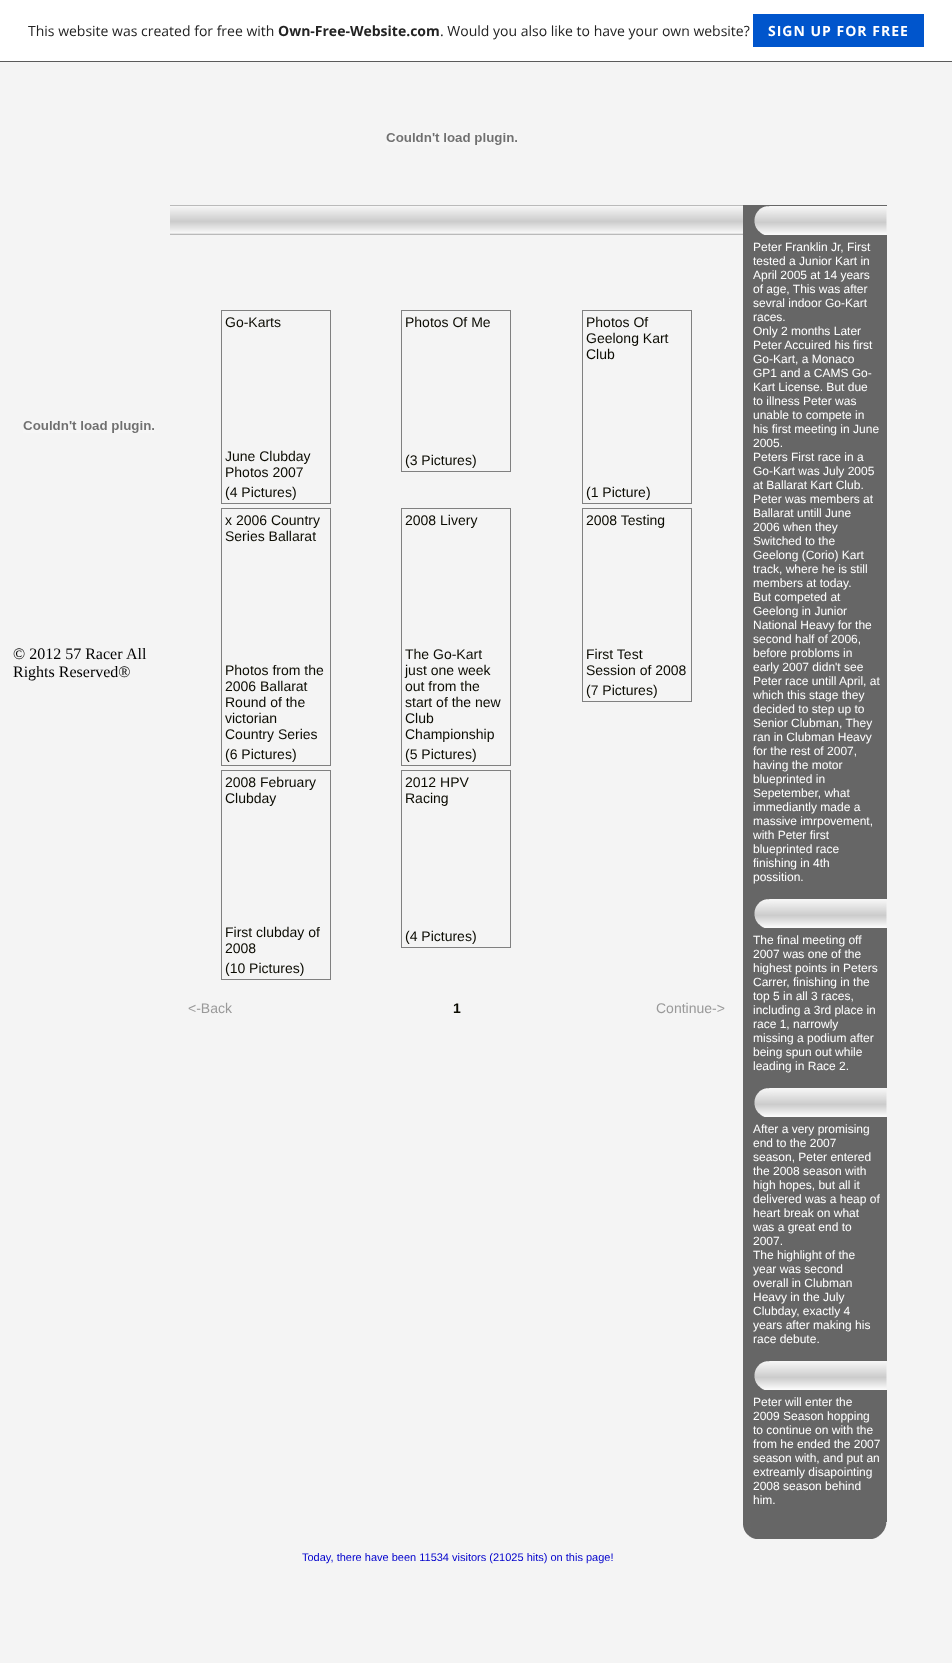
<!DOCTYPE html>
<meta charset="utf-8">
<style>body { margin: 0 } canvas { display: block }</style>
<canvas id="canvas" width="952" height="1663"></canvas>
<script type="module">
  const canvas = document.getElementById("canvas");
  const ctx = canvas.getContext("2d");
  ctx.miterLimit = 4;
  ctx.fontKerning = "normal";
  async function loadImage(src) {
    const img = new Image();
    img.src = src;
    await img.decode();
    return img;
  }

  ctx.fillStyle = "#f4f4f4";
  ctx.fillRect(0, 0, 952, 1663);
  ctx.fillStyle = "#ffffff";
  ctx.fillRect(0, 0, 952, 61);
  ctx.fillStyle = "#5a5a5a";
  ctx.fillRect(0, 61, 952, 1);
  ctx.font = "14px Open Sans";
  ctx.fillStyle = "#232323";
  ctx.fillText("This website was created for free with", 28, 36);
  ctx.font = "bold 14px Open Sans";
  ctx.fillText("Own-Free-Website.com", 278, 36);
  ctx.font = "14px Open Sans";
  ctx.fillText(". Would you also like to have your own website?", 440, 36);
  ctx.fillStyle = "#0055cc";
  ctx.fillRect(753, 14, 171, 33);
  ctx.letterSpacing = "1px";
  ctx.font = "bold 14px Open Sans";
  ctx.fillStyle = "#ffffff";
  ctx.fillText("SIGN UP FOR FREE", 768, 36);
  ctx.drawImage(await loadImage("img1.png"), 386, 133, 131, 12);
  ctx.drawImage(await loadImage("img1.png"), 23, 421, 131, 12);
  ctx.letterSpacing = "0px";
  ctx.font = "16px Liberation Serif";
  ctx.fillStyle = "#000000";
  ctx.fillText("© 2012 57 Racer", 13, 659);
  ctx.fillText("All", 126, 659);
  ctx.fillText("Rights Reserved®", 13, 677);
  ctx.drawImage(await loadImage("img2.png"), 170, 205, 573, 30);
  ctx.fillStyle = "#666666";
  ctx.fillRect(743, 205, 144, 1317);
  ctx.drawImage(await loadImage("img3.png"), 754, 206, 133, 29);
  ctx.strokeStyle = "#808080";
  ctx.strokeRect(221.5, 310.5, 109, 193);
  ctx.font = "14px Liberation Sans";
  ctx.fillStyle = "#0a0a00";
  ctx.fillText("Go-Karts", 225, 327);
  ctx.fillText("June Clubday", 225, 461);
  ctx.fillText("Photos 2007", 225, 477);
  ctx.fillText("(4 Pictures)", 225, 497);
  ctx.strokeRect(401.5, 310.5, 109, 161);
  ctx.fillText("Photos Of Me", 405, 327);
  ctx.fillText("(3 Pictures)", 405, 465);
  ctx.strokeRect(582.5, 310.5, 109, 193);
  ctx.fillText("Photos Of", 586, 327);
  ctx.fillText("Geelong Kart", 586, 343);
  ctx.fillText("Club", 586, 359);
  ctx.fillText("(1 Picture)", 586, 497);
  ctx.strokeRect(221.5, 508.5, 109, 257);
  ctx.fillText("x 2006 Country", 225, 525);
  ctx.fillText("Series Ballarat", 225, 541);
  ctx.fillText("Photos from the", 225, 675);
  ctx.fillText("2006 Ballarat", 225, 691);
  ctx.fillText("Round of the", 225, 707);
  ctx.fillText("victorian", 225, 723);
  ctx.fillText("Country Series", 225, 739);
  ctx.fillText("(6 Pictures)", 225, 759);
  ctx.strokeRect(401.5, 508.5, 109, 257);
  ctx.fillText("2008 Livery", 405, 525);
  ctx.fillText("The Go-Kart", 405, 659);
  ctx.fillText("just one week", 405, 675);
  ctx.fillText("out from the", 405, 691);
  ctx.fillText("start of the new", 405, 707);
  ctx.fillText("Club", 405, 723);
  ctx.fillText("Championship", 405, 739);
  ctx.fillText("(5 Pictures)", 405, 759);
  ctx.strokeRect(582.5, 508.5, 109, 193);
  ctx.fillText("2008 Testing", 586, 525);
  ctx.fillText("First Test", 586, 659);
  ctx.fillText("Session of 2008", 586, 675);
  ctx.fillText("(7 Pictures)", 586, 695);
  ctx.strokeRect(221.5, 770.5, 109, 209);
  ctx.fillText("2008 February", 225, 787);
  ctx.fillText("Clubday", 225, 803);
  ctx.fillText("First clubday of", 225, 937);
  ctx.fillText("2008", 225, 953);
  ctx.fillText("(10 Pictures)", 225, 973);
  ctx.strokeRect(401.5, 770.5, 109, 177);
  ctx.fillText("2012 HPV", 405, 787);
  ctx.fillText("Racing", 405, 803);
  ctx.fillText("(4 Pictures)", 405, 941);
  ctx.fillStyle = "#999999";
  ctx.fillText("<-Back", 188, 1013);
  ctx.font = "bold 14px Liberation Sans";
  ctx.fillStyle = "#0a0a00";
  ctx.fillText("1", 453, 1013);
  ctx.font = "14px Liberation Sans";
  ctx.fillStyle = "#999999";
  ctx.fillText("Continue->", 656, 1013);
  ctx.font = "12px Liberation Sans";
  ctx.fillStyle = "#ffffff";
  ctx.fillText("Peter Franklin Jr, First", 753, 251);
  ctx.fillText("tested a Junior Kart in", 753, 265);
  ctx.fillText("April 2005 at 14 years", 753, 279);
  ctx.fillText("of age, This was after", 753, 293);
  ctx.fillText("sevral indoor Go-Kart", 753, 307);
  ctx.fillText("races.", 753, 321);
  ctx.fillText("Only 2 months Later", 753, 335);
  ctx.fillText("Peter Accuired his first", 753, 349);
  ctx.fillText("Go-Kart, a Monaco", 753, 363);
  ctx.fillText("GP1 and a CAMS Go-", 753, 377);
  ctx.fillText("Kart License. But due", 753, 391);
  ctx.fillText("to illness Peter was", 753, 405);
  ctx.fillText("unable to compete in", 753, 419);
  ctx.fillText("his first meeting in June", 753, 433);
  ctx.fillText("2005.", 753, 447);
  ctx.fillText("Peters First race in a", 753, 461);
  ctx.fillText("Go-Kart was July 2005", 753, 475);
  ctx.fillText("at Ballarat Kart Club.", 753, 489);
  ctx.fillText("Peter was members at", 753, 503);
  ctx.fillText("Ballarat untill June", 753, 517);
  ctx.fillText("2006 when they", 753, 531);
  ctx.fillText("Switched to the", 753, 545);
  ctx.fillText("Geelong (Corio) Kart", 753, 559);
  ctx.fillText("track, where he is still", 753, 573);
  ctx.fillText("members at today.", 753, 587);
  ctx.fillText("But competed at", 753, 601);
  ctx.fillText("Geelong in Junior", 753, 615);
  ctx.fillText("National Heavy for the", 753, 629);
  ctx.fillText("second half of 2006,", 753, 643);
  ctx.fillText("before probloms in", 753, 657);
  ctx.fillText("early 2007 didn't see", 753, 671);
  ctx.fillText("Peter race untill April, at", 753, 685);
  ctx.fillText("which this stage they", 753, 699);
  ctx.fillText("decided to step up to", 753, 713);
  ctx.fillText("Senior Clubman, They", 753, 727);
  ctx.fillText("ran in Clubman Heavy", 753, 741);
  ctx.fillText("for the rest of 2007,", 753, 755);
  ctx.fillText("having the motor", 753, 769);
  ctx.fillText("blueprinted in", 753, 783);
  ctx.fillText("Sepetember, what", 753, 797);
  ctx.fillText("immediantly made a", 753, 811);
  ctx.fillText("massive imrpovement,", 753, 825);
  ctx.fillText("with Peter first", 753, 839);
  ctx.fillText("blueprinted race", 753, 853);
  ctx.fillText("finishing in 4th", 753, 867);
  ctx.fillText("possition.", 753, 881);
  ctx.drawImage(await loadImage("img3.png"), 754, 899, 133, 29);
  ctx.fillText("The final meeting off", 753, 944);
  ctx.fillText("2007 was one of the", 753, 958);
  ctx.fillText("highest points in Peters", 753, 972);
  ctx.fillText("Carrer, finishing in the", 753, 986);
  ctx.fillText("top 5 in all 3 races,", 753, 1000);
  ctx.fillText("including a 3rd place in", 753, 1014);
  ctx.fillText("race 1, narrowly", 753, 1028);
  ctx.fillText("missing a podium after", 753, 1042);
  ctx.fillText("being spun out while", 753, 1056);
  ctx.fillText("leading in Race 2.", 753, 1070);
  ctx.drawImage(await loadImage("img3.png"), 754, 1088, 133, 29);
  ctx.fillText("After a very promising", 753, 1133);
  ctx.fillText("end to the 2007", 753, 1147);
  ctx.fillText("season, Peter entered", 753, 1161);
  ctx.fillText("the 2008 season with", 753, 1175);
  ctx.fillText("high hopes, but all it", 753, 1189);
  ctx.fillText("delivered was a heap of", 753, 1203);
  ctx.fillText("heart break on what", 753, 1217);
  ctx.fillText("was a great end to", 753, 1231);
  ctx.fillText("2007.", 753, 1245);
  ctx.fillText("The highlight of the", 753, 1259);
  ctx.fillText("year was second", 753, 1273);
  ctx.fillText("overall in Clubman", 753, 1287);
  ctx.fillText("Heavy in the July", 753, 1301);
  ctx.fillText("Clubday, exactly 4", 753, 1315);
  ctx.fillText("years after making his", 753, 1329);
  ctx.fillText("race debute.", 753, 1343);
  ctx.drawImage(await loadImage("img3.png"), 754, 1361, 133, 29);
  ctx.fillText("Peter will enter the", 753, 1406);
  ctx.fillText("2009 Season hopping", 753, 1420);
  ctx.fillText("to continue on with the", 753, 1434);
  ctx.fillText("from he ended the 2007", 753, 1448);
  ctx.fillText("season with, and put an", 753, 1462);
  ctx.fillText("extreamly disapointing", 753, 1476);
  ctx.fillText("2008 season behind", 753, 1490);
  ctx.fillText("him.", 753, 1504);
  ctx.drawImage(await loadImage("img4.png"), 743, 1522, 144, 17);
  ctx.font = "11px Liberation Sans";
  ctx.fillStyle = "#0000cc";
  ctx.fillText("Today, there have been 11534 visitors (21025 hits) on this page!", 302, 1561);
</script>
